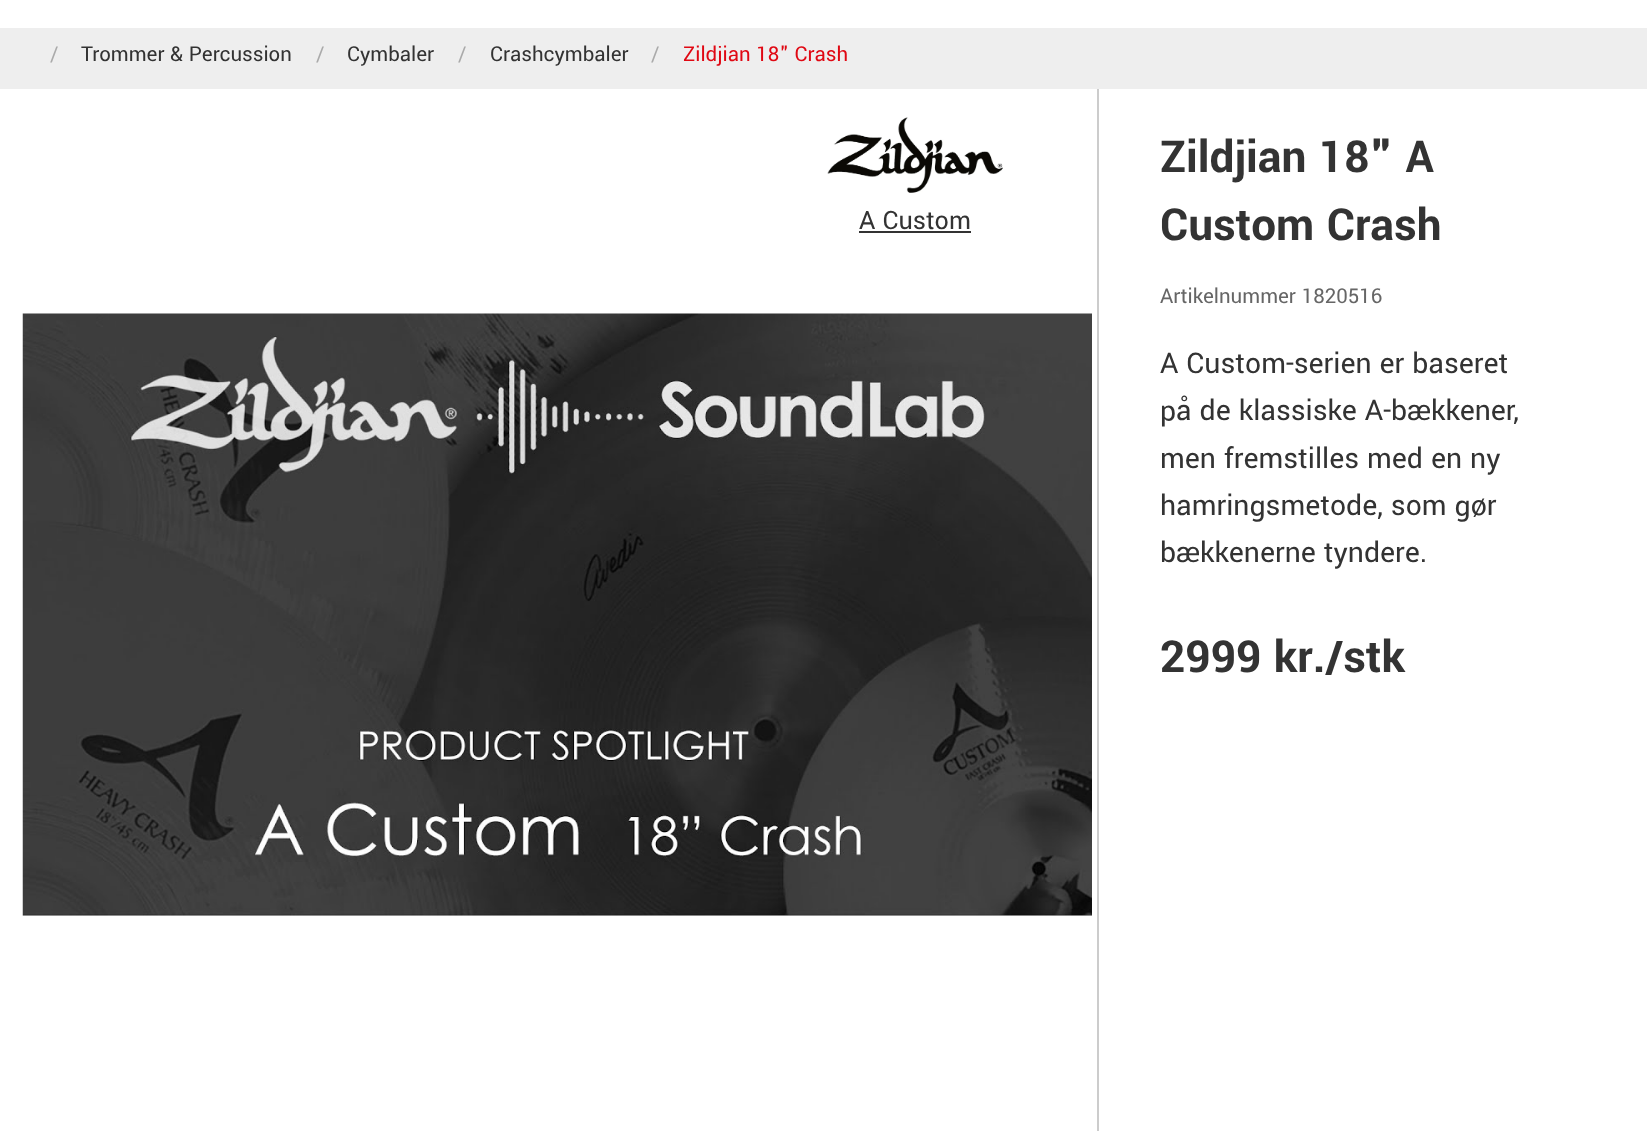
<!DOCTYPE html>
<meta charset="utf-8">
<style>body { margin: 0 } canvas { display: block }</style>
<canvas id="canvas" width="1647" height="1131"></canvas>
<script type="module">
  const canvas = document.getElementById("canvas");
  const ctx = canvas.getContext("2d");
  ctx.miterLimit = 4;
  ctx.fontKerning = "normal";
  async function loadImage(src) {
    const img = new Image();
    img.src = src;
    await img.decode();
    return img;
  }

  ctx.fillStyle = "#eeeeee";
  ctx.fillRect(0, 0, 1647, 1131);
  ctx.fillStyle = "#ffffff";
  ctx.fillRect(0, 0, 1647, 28);
  ctx.font = "22.75px Yantramanav";
  ctx.fillStyle = "#aaaaaa";
  ctx.fillText("/", 50, 61);
  ctx.fillStyle = "#333333";
  ctx.fillText("Trommer & Percussion", 81, 61);
  ctx.fillStyle = "#aaaaaa";
  ctx.fillText("/", 316, 61);
  ctx.fillStyle = "#333333";
  ctx.fillText("Cymbaler", 347, 61);
  ctx.fillStyle = "#aaaaaa";
  ctx.fillText("/", 458, 61);
  ctx.fillStyle = "#333333";
  ctx.fillText("Crashcymbaler", 490, 61);
  ctx.fillStyle = "#aaaaaa";
  ctx.fillText("/", 651, 61);
  ctx.fillStyle = "#e00813";
  ctx.fillText("Zildjian 18\" Crash", 683, 61);
  ctx.fillStyle = "#ffffff";
  ctx.fillRect(0, 89, 1647, 1042);
  ctx.fillStyle = "#cccccc";
  ctx.fillRect(1097, 89, 2, 1042);
  ctx.drawImage(await loadImage("img1.png"), 22, 313, 1070, 603);
  ctx.drawImage(await loadImage("img2.png"), 827, 117, 176, 76);
  ctx.font = "28px Yantramanav";
  ctx.fillStyle = "#333333";
  ctx.fillText("A Custom", 859, 229);
  ctx.fillRect(859, 231, 112, 2);
  ctx.font = "bold 49px Yantramanav";
  ctx.fillText("Zildjian 18\" A", 1160, 172);
  ctx.fillText("Custom Crash", 1160, 240);
  ctx.font = "22.75px Yantramanav";
  ctx.fillStyle = "#666666";
  ctx.fillText("Artikelnummer 1820516", 1160, 303);
  ctx.font = "31.5px Yantramanav";
  ctx.fillStyle = "#333333";
  ctx.fillText("A Custom-serien er baseret", 1160, 373);
  ctx.fillText("på de klassiske A-bækkener,", 1160, 420);
  ctx.fillText("men fremstilles med en ny", 1160, 468);
  ctx.fillText("hamringsmetode, som gør", 1160, 515);
  ctx.fillText("bækkenerne tyndere.", 1160, 562);
  ctx.font = "bold 49px Yantramanav";
  ctx.fillText("2999 kr./stk", 1160, 672);
</script>
